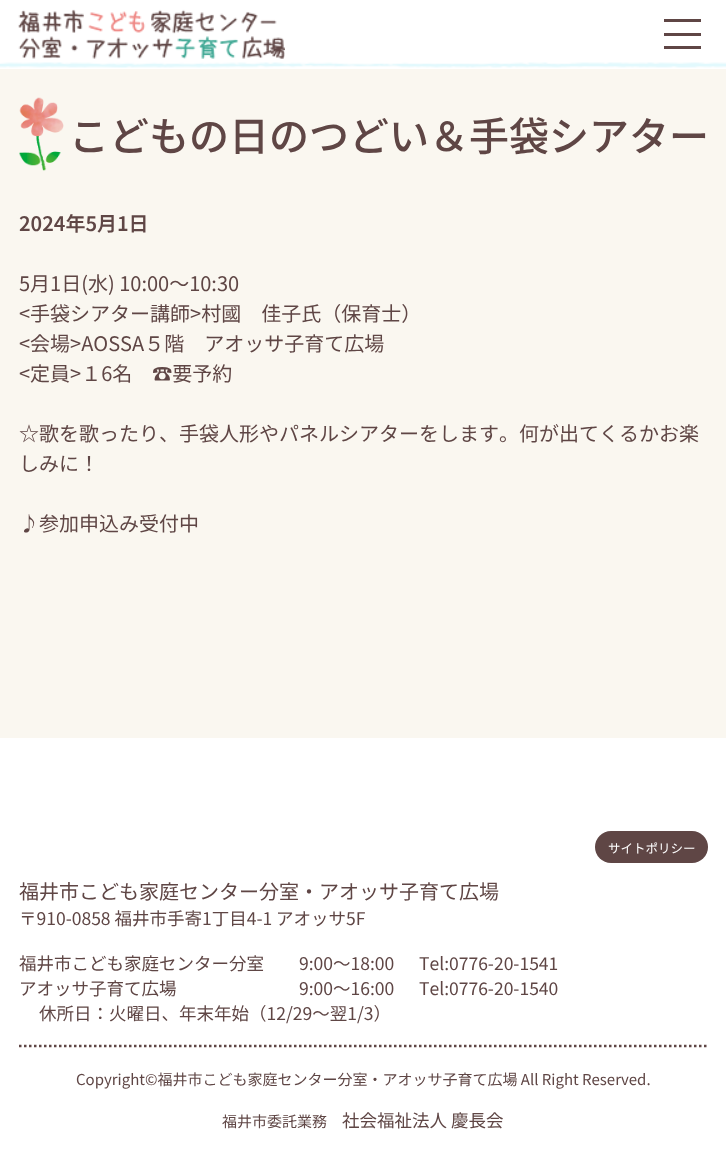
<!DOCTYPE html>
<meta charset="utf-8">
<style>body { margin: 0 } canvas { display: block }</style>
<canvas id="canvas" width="726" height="1151"></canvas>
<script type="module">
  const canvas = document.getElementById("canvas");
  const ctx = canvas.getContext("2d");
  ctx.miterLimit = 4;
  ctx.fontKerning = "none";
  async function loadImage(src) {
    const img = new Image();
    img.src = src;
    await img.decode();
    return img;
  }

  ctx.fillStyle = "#ffffff";
  ctx.fillRect(0, 0, 726, 1151);
  ctx.drawImage(await loadImage("img1.png"), 0, 48, 726, 21);
  ctx.drawImage(await loadImage("img2.png"), 18, 9, 267, 50);
  ctx.fillStyle = "#5f4645";
  ctx.fillRect(664, 33, 37, 3);
  ctx.fillRect(664, 19, 37, 3);
  ctx.fillRect(664, 46, 37, 3);
  ctx.fillStyle = "#faf7f0";
  ctx.fillRect(0, 69, 726, 669);
  ctx.drawImage(await loadImage("img3.png"), 19, 97, 45, 74);
  ctx.font = "500 40px Noto Sans JP";
  ctx.fillStyle = "#5f4645";
  ctx.fillText("こどもの日のつどい＆手袋シアター", 69, 151);
  ctx.font = "600 20px Noto Sans JP";
  ctx.fillText("2024年5月1日", 19, 231);
  ctx.font = "20px Noto Sans JP";
  ctx.fillText("5月1日(水) 10:00～10:30", 19, 291);
  ctx.fillText("<手袋シアター講師>村國　佳子氏（保育士）", 19, 321);
  ctx.fillText("<会場>AOSSA５階　アオッサ子育て広場", 19, 351);
  ctx.fillText("<定員>１6名　☎要予約", 19, 381);
  ctx.fillText("☆歌を歌ったり、手袋人形やパネルシアターをします。何が出てくるかお楽", 19, 441);
  ctx.fillText("しみに！", 19, 471);
  ctx.fillText("♪参加申込み受付中", 19, 531);
  ctx.beginPath();
  ctx.roundRect(595, 831, 113, 32, 16);
  ctx.fill();
  ctx.font = "12.5px Noto Sans JP";
  ctx.fillStyle = "#ffffff";
  ctx.fillText("サイトポリシー", 608, 853);
  ctx.font = "20px Noto Sans JP";
  ctx.fillStyle = "#5f4645";
  ctx.fillText("福井市こども家庭センター分室・アオッサ子育て広場", 19, 899);
  ctx.font = "17.5px Noto Sans JP";
  ctx.fillText("〒910-0858 福井市手寄1丁目4-1 アオッサ5F", 19, 925);
  ctx.beginPath();
  ctx.moveTo(19, 1046);
  ctx.lineTo(707.5, 1046);
  ctx.strokeStyle = "#5f4645";
  ctx.lineWidth = 2.5;
  ctx.setLineDash([2.5, 2.5]);
  ctx.stroke();
  ctx.fillText("福井市こども家庭センター分室", 19, 970);
  ctx.fillText("9:00～18:00", 299, 970);
  ctx.fillText("Tel:0776-20-1541", 419, 970);
  ctx.fillText("アオッサ子育て広場", 19, 995);
  ctx.fillText("9:00～16:00", 299, 995);
  ctx.fillText("Tel:0776-20-1540", 419, 995);
  ctx.fillText("休所日：火曜日、年末年始（12/29～翌1/3）", 39, 1020);
  ctx.font = "15px Noto Sans JP";
  ctx.fillText("Copyright©福井市こども家庭センター分室・アオッサ子育て広場 All Right Reserved.", 76, 1085);
  ctx.fillText("福井市委託業務", 222, 1127);
  ctx.font = "17.5px Noto Sans JP";
  ctx.fillText("社会福祉法人 慶長会", 342, 1127);
</script>
